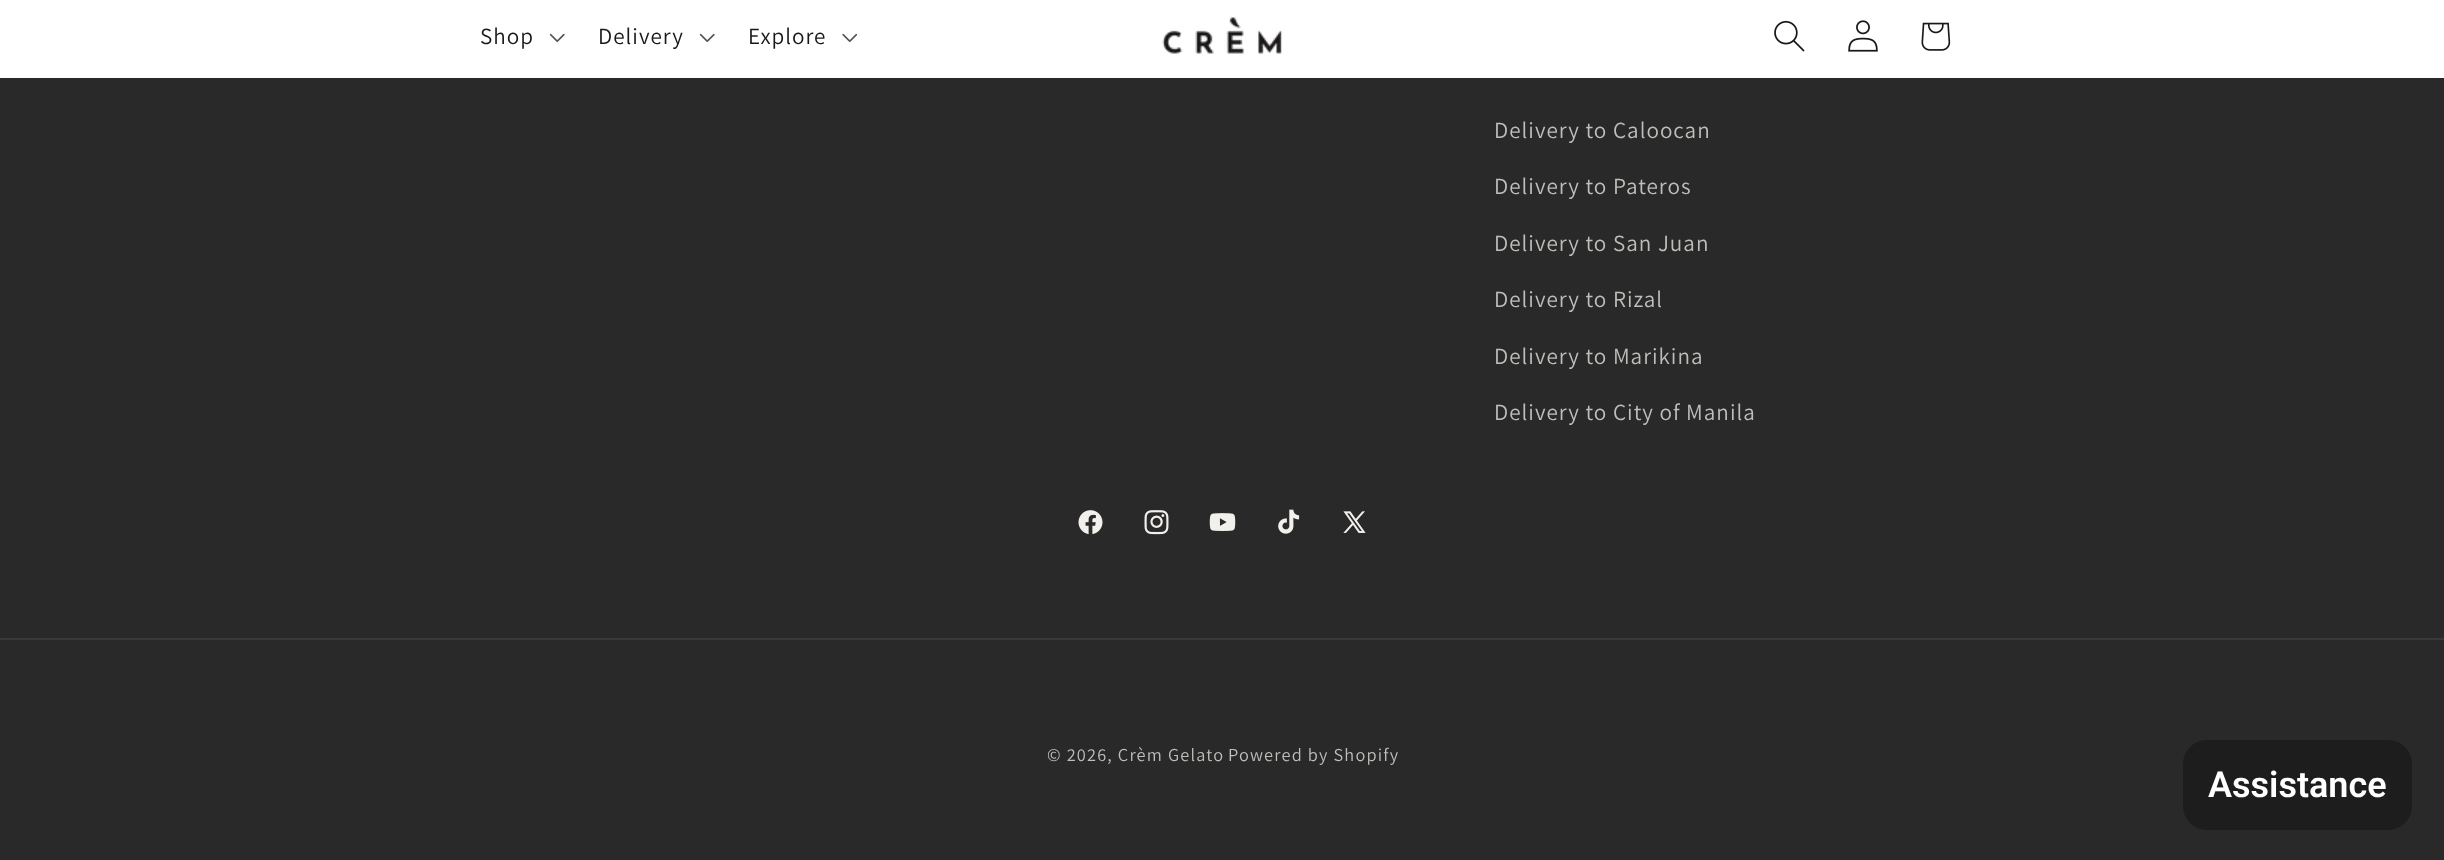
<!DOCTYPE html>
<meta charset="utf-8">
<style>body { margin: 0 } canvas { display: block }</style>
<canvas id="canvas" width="2444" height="860"></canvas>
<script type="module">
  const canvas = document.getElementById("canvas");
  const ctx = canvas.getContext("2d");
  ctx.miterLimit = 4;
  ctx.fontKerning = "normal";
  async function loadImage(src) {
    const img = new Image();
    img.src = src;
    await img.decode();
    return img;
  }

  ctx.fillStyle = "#292929";
  ctx.fillRect(0, 0, 2444, 860);
  ctx.fillStyle = "#ffffff";
  ctx.fillRect(0, 0, 2444, 78);
  ctx.letterSpacing = "1px";
  ctx.font = "23.1px Assistant";
  ctx.fillStyle = "#1a1719";
  ctx.fillText("Shop", 480, 44);
  ctx.drawImage(await loadImage("img1.png"), 549, 33, 16, 9);
  ctx.fillText("Delivery", 598, 44);
  ctx.drawImage(await loadImage("img1.png"), 699, 33, 16, 9);
  ctx.fillText("Explore", 748, 44);
  ctx.drawImage(await loadImage("img2.png"), 842, 33, 16, 9);
  ctx.drawImage(await loadImage("img3.png"), 1162, 17, 121, 37);
  ctx.drawImage(await loadImage("img4.png"), 1774, 20, 31, 32);
  ctx.drawImage(await loadImage("img5.png"), 1848, 20, 30, 32);
  ctx.drawImage(await loadImage("img6.png"), 1921, 22, 30, 29);
  ctx.fillStyle = "#c0bebb";
  ctx.fillText("Delivery to Caloocan", 1494, 138);
  ctx.fillText("Delivery to Pateros", 1494, 194);
  ctx.fillText("Delivery to San Juan", 1494, 251);
  ctx.fillText("Delivery to Rizal", 1494, 307);
  ctx.fillText("Delivery to Marikina", 1494, 364);
  ctx.fillText("Delivery to City of Manila", 1494, 420);
  ctx.drawImage(await loadImage("img7.png"), 1078, 510, 25, 25);
  ctx.drawImage(await loadImage("img8.png"), 1144, 510, 25, 25);
  ctx.drawImage(await loadImage("img9.png"), 1209, 513, 27, 18);
  ctx.drawImage(await loadImage("img10.png"), 1278, 509, 22, 25);
  ctx.drawImage(await loadImage("img11.png"), 1343, 511, 23, 22);
  ctx.fillStyle = "#393939";
  ctx.fillRect(0, 638, 2444, 2);
  ctx.letterSpacing = "1.2px";
  ctx.font = "18.25px Assistant";
  ctx.fillStyle = "#c0bebb";
  ctx.fillText("© 2026, Crèm Gelato", 1047, 761);
  ctx.fillText("Powered by Shopify", 1228, 761);
  ctx.fillStyle = "#1e1d1d";
  ctx.beginPath();
  ctx.roundRect(2183, 740, 229, 90, 24);
  ctx.fill();
  ctx.letterSpacing = "0px";
  ctx.font = "600 36px Roboto";
  ctx.fillStyle = "#ffffff";
  ctx.fillText("Assistance", 2208, 797);
</script>
